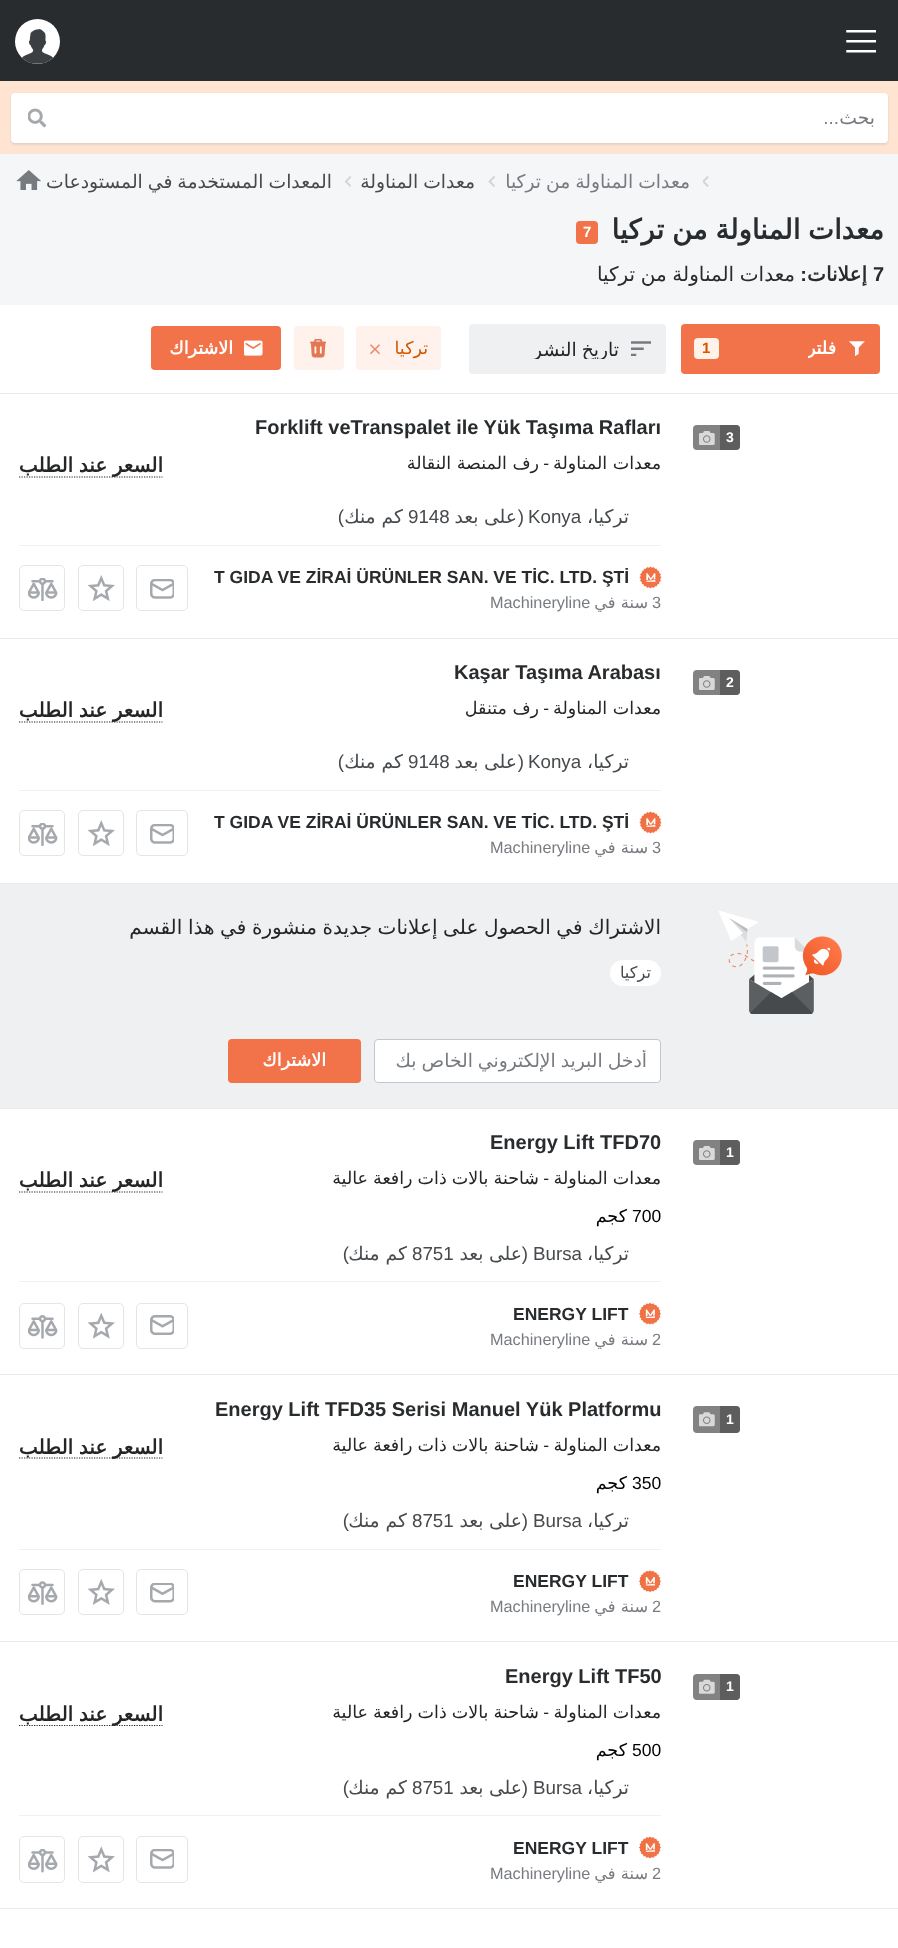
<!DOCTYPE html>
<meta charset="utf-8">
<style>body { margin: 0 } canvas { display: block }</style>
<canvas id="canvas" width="898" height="1948"></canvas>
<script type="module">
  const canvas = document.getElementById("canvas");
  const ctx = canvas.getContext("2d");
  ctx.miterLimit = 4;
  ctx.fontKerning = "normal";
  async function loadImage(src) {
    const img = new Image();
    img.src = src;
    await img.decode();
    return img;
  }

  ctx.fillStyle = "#f5f6f7";
  ctx.fillRect(0, 0, 898, 1948);
  ctx.fillStyle = "#292c2e";
  ctx.fillRect(0, 0, 898, 81);
  ctx.drawImage(await loadImage("img1.png"), 846, 30, 30, 23);
  ctx.fillStyle = "#ffffff";
  ctx.beginPath();
  ctx.arc(37.5, 41.5, 22.5, 0, Math.PI * 2);
  ctx.fill();
  ctx.drawImage(await loadImage("img2.png"), 22, 29, 31, 35);
  ctx.fillStyle = "#ffe4d1";
  ctx.fillRect(0, 81, 898, 73);
  ctx.fillStyle = "rgba(23, 81, 140, 0.05)";
  ctx.filter = "blur(1px)";
  ctx.beginPath();
  ctx.roundRect(11, 93, 877, 50, 4);
  ctx.fill();
  ctx.filter = "none";
  ctx.fillStyle = "rgba(23, 81, 140, 0.1)";
  ctx.filter = "blur(1px)";
  ctx.beginPath();
  ctx.roundRect(11, 95, 877, 50, 4);
  ctx.fill();
  ctx.filter = "none";
  ctx.fillStyle = "#ffffff";
  ctx.beginPath();
  ctx.roundRect(11, 93, 877, 50, 4);
  ctx.fill();
  ctx.direction = "rtl";
  ctx.font = "18.75px DejaVu Sans";
  ctx.fillStyle = "#777b80";
  ctx.fillText("بحث", 875, 124);
  ctx.font = "18.75px Liberation Sans";
  ctx.fillText("...", 839, 124);
  ctx.drawImage(await loadImage("img3.png"), 28, 108, 18, 20);
  ctx.drawImage(await loadImage("img4.png"), 703, 176, 6, 11);
  ctx.wordSpacing = "-1px";
  ctx.font = "18.75px DejaVu Sans";
  ctx.fillText("معدات المناولة من تركيا", 690, 188);
  ctx.drawImage(await loadImage("img5.png"), 488, 176, 7, 11);
  ctx.fillStyle = "#474a4d";
  ctx.fillText("معدات المناولة", 475, 188);
  ctx.drawImage(await loadImage("img6.png"), 344, 176, 7, 11);
  ctx.fillText("المعدات المستخدمة في المستودعات", 332, 188);
  ctx.drawImage(await loadImage("img7.png"), 16, 170, 25, 20);
  ctx.font = "bold 27.5px DejaVu Sans";
  ctx.fillStyle = "#292c2e";
  ctx.fillText("معدات المناولة من تركيا", 884, 239);
  ctx.fillStyle = "#f27349";
  ctx.beginPath();
  ctx.roundRect(576, 221, 22, 23, 4);
  ctx.fill();
  ctx.wordSpacing = "0px";
  ctx.direction = "ltr";
  ctx.font = "bold 15px Liberation Sans";
  ctx.fillStyle = "#ffffff";
  ctx.fillText("7", 583, 237);
  ctx.font = "bold 20px Liberation Sans";
  ctx.fillStyle = "#292c2e";
  ctx.fillText("7", 873, 281);
  ctx.direction = "rtl";
  ctx.font = "bold 20px DejaVu Sans";
  ctx.fillText("إعلانات", 867, 281);
  ctx.font = "bold 20px Liberation Sans";
  ctx.fillText(":", 807, 281);
  ctx.wordSpacing = "-0.75px";
  ctx.font = "20px DejaVu Sans";
  ctx.fillText("معدات المناولة من تركيا", 795, 281);
  ctx.fillStyle = "#ffffff";
  ctx.fillRect(0, 305, 898, 88);
  ctx.fillStyle = "#f27349";
  ctx.beginPath();
  ctx.roundRect(681, 324, 199, 50, 4);
  ctx.fill();
  ctx.drawImage(await loadImage("img8.png"), 849, 341, 16, 15);
  ctx.save();
  ctx.beginPath();
  ctx.rect(808, 339, 28, 20);
  ctx.clip();
  ctx.wordSpacing = "0px";
  ctx.font = "bold 17.5px DejaVu Sans";
  ctx.fillStyle = "#ffffff";
  ctx.fillText("فلتر", 836, 354);
  ctx.restore();
  ctx.fillStyle = "#fff2e8";
  ctx.beginPath();
  ctx.roundRect(694, 338, 25, 21, 4);
  ctx.fill();
  ctx.wordSpacing = "0px";
  ctx.direction = "ltr";
  ctx.font = "bold 15px Liberation Sans";
  ctx.fillStyle = "#d15701";
  ctx.fillText("1", 702, 353);
  ctx.fillStyle = "#eef0f2";
  ctx.beginPath();
  ctx.roundRect(469, 324, 197, 50, 4);
  ctx.fill();
  ctx.drawImage(await loadImage("img9.png"), 631, 341, 20, 15);
  ctx.save();
  ctx.beginPath();
  ctx.rect(533, 339, 86, 20);
  ctx.clip();
  ctx.wordSpacing = "-1px";
  ctx.direction = "rtl";
  ctx.font = "18.75px DejaVu Sans";
  ctx.fillStyle = "#232526";
  ctx.fillText("تاريخ النشر", 619, 356);
  ctx.restore();
  ctx.fillStyle = "#fff2ed";
  ctx.beginPath();
  ctx.roundRect(356, 326, 85, 44, 4);
  ctx.fill();
  ctx.direction = "rtl";
  ctx.font = "17.5px DejaVu Sans";
  ctx.fillStyle = "#d15701";
  ctx.fillText("تركيا", 428, 354);
  ctx.drawImage(await loadImage("img10.png"), 370, 344, 10, 11);
  ctx.fillStyle = "#fff2ed";
  ctx.beginPath();
  ctx.roundRect(294, 326, 50, 44, 4);
  ctx.fill();
  ctx.drawImage(await loadImage("img11.png"), 310, 339, 16, 19);
  ctx.fillStyle = "#f27349";
  ctx.beginPath();
  ctx.roundRect(151, 326, 130, 44, 4);
  ctx.fill();
  ctx.drawImage(await loadImage("img12.png"), 244, 340, 19, 16);
  ctx.font = "bold 17.5px DejaVu Sans";
  ctx.fillStyle = "#ffffff";
  ctx.fillText("الاشتراك", 233, 354);
  ctx.fillRect(0, 394, 898, 1554);
  ctx.fillStyle = "#ebebec";
  ctx.fillRect(0, 393, 898, 1);
  ctx.fillStyle = "#828282";
  ctx.beginPath();
  ctx.roundRect(693, 425, 47, 25, 4);
  ctx.fill();
  ctx.fillStyle = "rgba(77, 77, 77, 0.7)";
  ctx.beginPath();
  ctx.roundRect(720, 425, 20, 25, [0, 4, 4, 0]);
  ctx.fill();
  ctx.direction = "ltr";
  ctx.font = "bold 14px Liberation Sans";
  ctx.fillStyle = "#ffffff";
  ctx.fillText("3", 726, 442);
  ctx.drawImage(await loadImage("img13.png"), 699, 431, 16, 14);
  ctx.font = "bold 20px Liberation Sans";
  ctx.fillStyle = "#292c2e";
  ctx.fillText("Forklift veTranspalet ile Yük Taşıma Rafları", 255, 434);
  ctx.direction = "rtl";
  ctx.font = "17.5px DejaVu Sans";
  ctx.fillStyle = "#232526";
  ctx.fillText("معدات المناولة", 661, 469);
  ctx.font = "17.5px Liberation Sans";
  ctx.fillText("-", 549, 469);
  ctx.font = "17.5px DejaVu Sans";
  ctx.fillText("رف المنصة النقالة", 539, 469);
  ctx.beginPath();
  ctx.moveTo(19, 477);
  ctx.lineTo(162.5, 477);
  ctx.strokeStyle = "#232526";
  ctx.lineWidth = 1.2;
  ctx.setLineDash([1.25, 1.25]);
  ctx.stroke();
  ctx.wordSpacing = "-0.75px";
  ctx.font = "bold 20px DejaVu Sans";
  ctx.fillText("السعر عند الطلب", 163, 472);
  ctx.fillStyle = "#f2f2f2";
  ctx.fillRect(19, 545, 642, 1);
  ctx.wordSpacing = "0px";
  ctx.font = "18.75px DejaVu Sans";
  ctx.fillStyle = "#474a4d";
  ctx.fillText("تركيا،", 629, 523);
  ctx.direction = "ltr";
  ctx.font = "18.75px Liberation Sans";
  ctx.fillText("Konya", 528, 523);
  ctx.direction = "rtl";
  ctx.fillText("(", 524, 523);
  ctx.wordSpacing = "-0.5px";
  ctx.font = "18.75px DejaVu Sans";
  ctx.fillText("على بعد", 517, 523);
  ctx.wordSpacing = "0px";
  ctx.direction = "ltr";
  ctx.font = "18.75px Liberation Sans";
  ctx.fillText("9148", 408, 523);
  ctx.direction = "rtl";
  ctx.font = "18.75px DejaVu Sans";
  ctx.fillText("كم منك", 403, 523);
  ctx.save();
  ctx.beginPath();
  ctx.rect(339, 504, 290, 25);
  ctx.clip();
  ctx.font = "18.75px Liberation Sans";
  ctx.fillText(")", 344, 523);
  ctx.restore();
  ctx.drawImage(await loadImage("img14.png"), 639, 566, 23, 23);
  ctx.direction = "ltr";
  ctx.font = "bold 17.5px Liberation Sans";
  ctx.fillStyle = "#292c2e";
  ctx.fillText("T GIDA VE ZİRAİ ÜRÜNLER SAN. VE TİC. LTD. ŞTİ", 214, 583);
  ctx.font = "16.25px Liberation Sans";
  ctx.fillStyle = "#777b80";
  ctx.fillText("3", 652, 608);
  ctx.direction = "rtl";
  ctx.font = "16.25px DejaVu Sans";
  ctx.fillText("سنة في", 648, 608);
  ctx.direction = "ltr";
  ctx.font = "16.25px Liberation Sans";
  ctx.fillText("Machineryline", 490, 608);
  ctx.beginPath();
  ctx.roundRect(136.5, 565.5, 51, 45, 4.5);
  ctx.strokeStyle = "#e4e5e5";
  ctx.lineWidth = 1;
  ctx.setLineDash([]);
  ctx.stroke();
  ctx.drawImage(await loadImage("img15.png"), 150, 579, 24, 20);
  ctx.beginPath();
  ctx.roundRect(78.5, 565.5, 45, 45, 4.5);
  ctx.stroke();
  ctx.drawImage(await loadImage("img16.png"), 88, 575, 27, 26);
  ctx.beginPath();
  ctx.roundRect(19.5, 565.5, 45, 45, 4.5);
  ctx.stroke();
  ctx.drawImage(await loadImage("img17.png"), 28, 578, 30, 23);
  ctx.fillStyle = "#ebebec";
  ctx.fillRect(0, 638, 898, 1);
  ctx.fillStyle = "#828282";
  ctx.beginPath();
  ctx.roundRect(693, 670, 47, 25, 4);
  ctx.fill();
  ctx.fillStyle = "rgba(77, 77, 77, 0.7)";
  ctx.beginPath();
  ctx.roundRect(720, 670, 20, 25, [0, 4, 4, 0]);
  ctx.fill();
  ctx.font = "bold 14px Liberation Sans";
  ctx.fillStyle = "#ffffff";
  ctx.fillText("2", 726, 687);
  ctx.drawImage(await loadImage("img13.png"), 699, 676, 16, 14);
  ctx.font = "bold 20px Liberation Sans";
  ctx.fillStyle = "#292c2e";
  ctx.fillText("Kaşar Taşıma Arabası", 454, 679);
  ctx.direction = "rtl";
  ctx.font = "17.5px DejaVu Sans";
  ctx.fillStyle = "#232526";
  ctx.fillText("معدات المناولة", 661, 714);
  ctx.font = "17.5px Liberation Sans";
  ctx.fillText("-", 549, 714);
  ctx.font = "17.5px DejaVu Sans";
  ctx.fillText("رف متنقل", 539, 714);
  ctx.beginPath();
  ctx.moveTo(19, 722);
  ctx.lineTo(162.5, 722);
  ctx.strokeStyle = "#232526";
  ctx.lineWidth = 1.2;
  ctx.setLineDash([1.25, 1.25]);
  ctx.stroke();
  ctx.wordSpacing = "-0.75px";
  ctx.font = "bold 20px DejaVu Sans";
  ctx.fillText("السعر عند الطلب", 163, 717);
  ctx.fillStyle = "#f2f2f2";
  ctx.fillRect(19, 790, 642, 1);
  ctx.wordSpacing = "0px";
  ctx.font = "18.75px DejaVu Sans";
  ctx.fillStyle = "#474a4d";
  ctx.fillText("تركيا،", 629, 768);
  ctx.direction = "ltr";
  ctx.font = "18.75px Liberation Sans";
  ctx.fillText("Konya", 528, 768);
  ctx.direction = "rtl";
  ctx.fillText("(", 524, 768);
  ctx.wordSpacing = "-0.5px";
  ctx.font = "18.75px DejaVu Sans";
  ctx.fillText("على بعد", 517, 768);
  ctx.wordSpacing = "0px";
  ctx.direction = "ltr";
  ctx.font = "18.75px Liberation Sans";
  ctx.fillText("9148", 408, 768);
  ctx.direction = "rtl";
  ctx.font = "18.75px DejaVu Sans";
  ctx.fillText("كم منك", 403, 768);
  ctx.save();
  ctx.beginPath();
  ctx.rect(339, 749, 290, 25);
  ctx.clip();
  ctx.font = "18.75px Liberation Sans";
  ctx.fillText(")", 344, 768);
  ctx.restore();
  ctx.drawImage(await loadImage("img14.png"), 639, 811, 23, 23);
  ctx.direction = "ltr";
  ctx.font = "bold 17.5px Liberation Sans";
  ctx.fillStyle = "#292c2e";
  ctx.fillText("T GIDA VE ZİRAİ ÜRÜNLER SAN. VE TİC. LTD. ŞTİ", 214, 828);
  ctx.font = "16.25px Liberation Sans";
  ctx.fillStyle = "#777b80";
  ctx.fillText("3", 652, 853);
  ctx.direction = "rtl";
  ctx.font = "16.25px DejaVu Sans";
  ctx.fillText("سنة في", 648, 853);
  ctx.direction = "ltr";
  ctx.font = "16.25px Liberation Sans";
  ctx.fillText("Machineryline", 490, 853);
  ctx.beginPath();
  ctx.roundRect(136.5, 810.5, 51, 45, 4.5);
  ctx.strokeStyle = "#e4e5e5";
  ctx.lineWidth = 1;
  ctx.setLineDash([]);
  ctx.stroke();
  ctx.drawImage(await loadImage("img15.png"), 150, 824, 24, 20);
  ctx.beginPath();
  ctx.roundRect(78.5, 810.5, 45, 45, 4.5);
  ctx.stroke();
  ctx.drawImage(await loadImage("img16.png"), 88, 820, 27, 26);
  ctx.beginPath();
  ctx.roundRect(19.5, 810.5, 45, 45, 4.5);
  ctx.stroke();
  ctx.drawImage(await loadImage("img17.png"), 28, 823, 30, 23);
  ctx.fillStyle = "#ebebec";
  ctx.fillRect(0, 883, 898, 1);
  ctx.fillStyle = "#eef0f2";
  ctx.fillRect(0, 884, 898, 224);
  ctx.drawImage(await loadImage("img18.png"), 718, 910, 124, 104);
  ctx.wordSpacing = "-0.75px";
  ctx.direction = "rtl";
  ctx.font = "20px DejaVu Sans";
  ctx.fillStyle = "#232526";
  ctx.fillText("الاشتراك في الحصول على إعلانات جديدة منشورة في هذا القسم", 661, 934);
  ctx.fillStyle = "#ffffff";
  ctx.beginPath();
  ctx.roundRect(610, 960, 51, 26, 13);
  ctx.fill();
  ctx.wordSpacing = "0px";
  ctx.font = "16.25px DejaVu Sans";
  ctx.fillStyle = "#474a4d";
  ctx.fillText("تركيا", 651, 978);
  ctx.fillStyle = "#ffffff";
  ctx.beginPath();
  ctx.roundRect(374.5, 1039.5, 286, 43, 3.5);
  ctx.fill();
  ctx.strokeStyle = "#c3c7cc";
  ctx.stroke();
  ctx.save();
  ctx.beginPath();
  ctx.rect(388, 1050, 260, 23);
  ctx.clip();
  ctx.wordSpacing = "-1px";
  ctx.font = "18.75px DejaVu Sans";
  ctx.fillStyle = "#777b80";
  ctx.fillText("أدخل البريد الإلكتروني الخاص بك", 647, 1067);
  ctx.restore();
  ctx.fillStyle = "#f27349";
  ctx.beginPath();
  ctx.roundRect(228, 1039, 133, 44, 4);
  ctx.fill();
  ctx.font = "bold 17.5px DejaVu Sans";
  ctx.fillStyle = "#ffffff";
  ctx.fillText("الاشتراك", 326, 1066);
  ctx.fillStyle = "#ebebec";
  ctx.fillRect(0, 1108, 898, 1);
  ctx.fillStyle = "#828282";
  ctx.beginPath();
  ctx.roundRect(693, 1140, 47, 25, 4);
  ctx.fill();
  ctx.fillStyle = "rgba(77, 77, 77, 0.7)";
  ctx.beginPath();
  ctx.roundRect(720, 1140, 20, 25, [0, 4, 4, 0]);
  ctx.fill();
  ctx.direction = "ltr";
  ctx.font = "bold 14px Liberation Sans";
  ctx.fillStyle = "#ffffff";
  ctx.fillText("1", 726, 1157);
  ctx.drawImage(await loadImage("img13.png"), 699, 1146, 16, 14);
  ctx.font = "bold 20px Liberation Sans";
  ctx.fillStyle = "#292c2e";
  ctx.fillText("Energy Lift TFD70", 490, 1149);
  ctx.wordSpacing = "-0.5px";
  ctx.direction = "rtl";
  ctx.font = "17.5px DejaVu Sans";
  ctx.fillStyle = "#232526";
  ctx.fillText("معدات المناولة", 661, 1184);
  ctx.wordSpacing = "0px";
  ctx.font = "17.5px Liberation Sans";
  ctx.fillText("-", 549, 1184);
  ctx.wordSpacing = "-0.5px";
  ctx.font = "17.5px DejaVu Sans";
  ctx.fillText("شاحنة بالات ذات رافعة عالية", 539, 1184);
  ctx.wordSpacing = "0px";
  ctx.direction = "ltr";
  ctx.font = "17.5px Liberation Sans";
  ctx.fillStyle = "#000000";
  ctx.fillText("700", 632, 1222);
  ctx.direction = "rtl";
  ctx.font = "17.5px DejaVu Sans";
  ctx.fillText("كجم", 627, 1222);
  ctx.beginPath();
  ctx.moveTo(19, 1192);
  ctx.lineTo(162.5, 1192);
  ctx.strokeStyle = "#232526";
  ctx.lineWidth = 1.2;
  ctx.setLineDash([1.25, 1.25]);
  ctx.stroke();
  ctx.wordSpacing = "-0.75px";
  ctx.font = "bold 20px DejaVu Sans";
  ctx.fillStyle = "#232526";
  ctx.fillText("السعر عند الطلب", 163, 1187);
  ctx.fillStyle = "#f2f2f2";
  ctx.fillRect(19, 1281, 642, 1);
  ctx.wordSpacing = "0px";
  ctx.font = "18.75px DejaVu Sans";
  ctx.fillStyle = "#474a4d";
  ctx.fillText("تركيا،", 629, 1260);
  ctx.direction = "ltr";
  ctx.font = "18.75px Liberation Sans";
  ctx.fillText("Bursa", 533, 1260);
  ctx.direction = "rtl";
  ctx.fillText("(", 528, 1260);
  ctx.wordSpacing = "-0.5px";
  ctx.font = "18.75px DejaVu Sans";
  ctx.fillText("على بعد", 522, 1260);
  ctx.wordSpacing = "0px";
  ctx.direction = "ltr";
  ctx.font = "18.75px Liberation Sans";
  ctx.fillText("8751", 412, 1260);
  ctx.direction = "rtl";
  ctx.font = "18.75px DejaVu Sans";
  ctx.fillText("كم منك", 407, 1260);
  ctx.font = "18.75px Liberation Sans";
  ctx.fillText(")", 349, 1260);
  ctx.drawImage(await loadImage("img19.png"), 638, 1302, 23, 23);
  ctx.direction = "ltr";
  ctx.font = "bold 17.5px Liberation Sans";
  ctx.fillStyle = "#292c2e";
  ctx.fillText("ENERGY LIFT", 513, 1320);
  ctx.font = "16.25px Liberation Sans";
  ctx.fillStyle = "#777b80";
  ctx.fillText("2", 652, 1345);
  ctx.direction = "rtl";
  ctx.font = "16.25px DejaVu Sans";
  ctx.fillText("سنة في", 648, 1345);
  ctx.direction = "ltr";
  ctx.font = "16.25px Liberation Sans";
  ctx.fillText("Machineryline", 490, 1345);
  ctx.beginPath();
  ctx.roundRect(136.5, 1303.5, 51, 45, 4.5);
  ctx.strokeStyle = "#e4e5e5";
  ctx.lineWidth = 1;
  ctx.setLineDash([]);
  ctx.stroke();
  ctx.drawImage(await loadImage("img20.png"), 150, 1315, 24, 20);
  ctx.beginPath();
  ctx.roundRect(78.5, 1303.5, 45, 45, 4.5);
  ctx.stroke();
  ctx.drawImage(await loadImage("img21.png"), 88, 1313, 27, 26);
  ctx.beginPath();
  ctx.roundRect(19.5, 1303.5, 45, 45, 4.5);
  ctx.stroke();
  ctx.drawImage(await loadImage("img22.png"), 28, 1315, 30, 24);
  ctx.fillStyle = "#ebebec";
  ctx.fillRect(0, 1374, 898, 1);
  ctx.fillStyle = "#828282";
  ctx.beginPath();
  ctx.roundRect(693, 1406, 47, 27, 4);
  ctx.fill();
  ctx.fillStyle = "rgba(77, 77, 77, 0.7)";
  ctx.beginPath();
  ctx.roundRect(720, 1406, 20, 27, [0, 4, 4, 0]);
  ctx.fill();
  ctx.font = "bold 14px Liberation Sans";
  ctx.fillStyle = "#ffffff";
  ctx.fillText("1", 726, 1424);
  ctx.drawImage(await loadImage("img23.png"), 699, 1412, 16, 15);
  ctx.font = "bold 20px Liberation Sans";
  ctx.fillStyle = "#292c2e";
  ctx.fillText("Energy Lift TFD35 Serisi Manuel Yük Platformu", 215, 1416);
  ctx.wordSpacing = "-0.5px";
  ctx.direction = "rtl";
  ctx.font = "17.5px DejaVu Sans";
  ctx.fillStyle = "#232526";
  ctx.fillText("معدات المناولة", 661, 1451);
  ctx.wordSpacing = "0px";
  ctx.font = "17.5px Liberation Sans";
  ctx.fillText("-", 549, 1451);
  ctx.wordSpacing = "-0.5px";
  ctx.font = "17.5px DejaVu Sans";
  ctx.fillText("شاحنة بالات ذات رافعة عالية", 539, 1451);
  ctx.wordSpacing = "0px";
  ctx.direction = "ltr";
  ctx.font = "17.5px Liberation Sans";
  ctx.fillStyle = "#000000";
  ctx.fillText("350", 632, 1489);
  ctx.direction = "rtl";
  ctx.font = "17.5px DejaVu Sans";
  ctx.fillText("كجم", 627, 1489);
  ctx.beginPath();
  ctx.moveTo(19, 1458);
  ctx.lineTo(162.5, 1458);
  ctx.strokeStyle = "#232526";
  ctx.lineWidth = 1.2;
  ctx.setLineDash([1.25, 1.25]);
  ctx.stroke();
  ctx.wordSpacing = "-0.75px";
  ctx.font = "bold 20px DejaVu Sans";
  ctx.fillStyle = "#232526";
  ctx.fillText("السعر عند الطلب", 163, 1454);
  ctx.fillStyle = "#f2f2f2";
  ctx.fillRect(19, 1549, 642, 1);
  ctx.wordSpacing = "0px";
  ctx.font = "18.75px DejaVu Sans";
  ctx.fillStyle = "#474a4d";
  ctx.fillText("تركيا،", 629, 1527);
  ctx.direction = "ltr";
  ctx.font = "18.75px Liberation Sans";
  ctx.fillText("Bursa", 533, 1527);
  ctx.direction = "rtl";
  ctx.fillText("(", 528, 1527);
  ctx.wordSpacing = "-0.5px";
  ctx.font = "18.75px DejaVu Sans";
  ctx.fillText("على بعد", 522, 1527);
  ctx.wordSpacing = "0px";
  ctx.direction = "ltr";
  ctx.font = "18.75px Liberation Sans";
  ctx.fillText("8751", 412, 1527);
  ctx.direction = "rtl";
  ctx.font = "18.75px DejaVu Sans";
  ctx.fillText("كم منك", 407, 1527);
  ctx.font = "18.75px Liberation Sans";
  ctx.fillText(")", 349, 1527);
  ctx.drawImage(await loadImage("img24.png"), 638, 1570, 23, 23);
  ctx.direction = "ltr";
  ctx.font = "bold 17.5px Liberation Sans";
  ctx.fillStyle = "#292c2e";
  ctx.fillText("ENERGY LIFT", 513, 1587);
  ctx.font = "16.25px Liberation Sans";
  ctx.fillStyle = "#777b80";
  ctx.fillText("2", 652, 1612);
  ctx.direction = "rtl";
  ctx.font = "16.25px DejaVu Sans";
  ctx.fillText("سنة في", 648, 1612);
  ctx.direction = "ltr";
  ctx.font = "16.25px Liberation Sans";
  ctx.fillText("Machineryline", 490, 1612);
  ctx.beginPath();
  ctx.roundRect(136.5, 1569.5, 51, 45, 4.5);
  ctx.strokeStyle = "#e4e5e5";
  ctx.lineWidth = 1;
  ctx.setLineDash([]);
  ctx.stroke();
  ctx.drawImage(await loadImage("img25.png"), 150, 1583, 24, 20);
  ctx.beginPath();
  ctx.roundRect(78.5, 1569.5, 45, 45, 4.5);
  ctx.stroke();
  ctx.drawImage(await loadImage("img26.png"), 88, 1579, 27, 26);
  ctx.beginPath();
  ctx.roundRect(19.5, 1569.5, 45, 45, 4.5);
  ctx.stroke();
  ctx.drawImage(await loadImage("img27.png"), 28, 1581, 30, 24);
  ctx.fillStyle = "#ebebec";
  ctx.fillRect(0, 1641, 898, 1);
  ctx.fillStyle = "#828282";
  ctx.beginPath();
  ctx.roundRect(693, 1674, 47, 26, 4);
  ctx.fill();
  ctx.fillStyle = "rgba(77, 77, 77, 0.7)";
  ctx.beginPath();
  ctx.roundRect(720, 1674, 20, 26, [0, 4, 4, 0]);
  ctx.fill();
  ctx.font = "bold 14px Liberation Sans";
  ctx.fillStyle = "#ffffff";
  ctx.fillText("1", 726, 1691);
  ctx.drawImage(await loadImage("img28.png"), 699, 1679, 16, 15);
  ctx.font = "bold 20px Liberation Sans";
  ctx.fillStyle = "#292c2e";
  ctx.fillText("Energy Lift TF50", 505, 1683);
  ctx.wordSpacing = "-0.5px";
  ctx.direction = "rtl";
  ctx.font = "17.5px DejaVu Sans";
  ctx.fillStyle = "#232526";
  ctx.fillText("معدات المناولة", 661, 1718);
  ctx.wordSpacing = "0px";
  ctx.font = "17.5px Liberation Sans";
  ctx.fillText("-", 549, 1718);
  ctx.wordSpacing = "-0.5px";
  ctx.font = "17.5px DejaVu Sans";
  ctx.fillText("شاحنة بالات ذات رافعة عالية", 539, 1718);
  ctx.wordSpacing = "0px";
  ctx.direction = "ltr";
  ctx.font = "17.5px Liberation Sans";
  ctx.fillStyle = "#000000";
  ctx.fillText("500", 632, 1756);
  ctx.direction = "rtl";
  ctx.font = "17.5px DejaVu Sans";
  ctx.fillText("كجم", 627, 1756);
  ctx.beginPath();
  ctx.moveTo(19, 1725.5);
  ctx.lineTo(162.5, 1725.5);
  ctx.strokeStyle = "#232526";
  ctx.lineWidth = 1.2;
  ctx.setLineDash([1.25, 1.25]);
  ctx.stroke();
  ctx.wordSpacing = "-0.75px";
  ctx.font = "bold 20px DejaVu Sans";
  ctx.fillStyle = "#232526";
  ctx.fillText("السعر عند الطلب", 163, 1721);
  ctx.fillStyle = "#f2f2f2";
  ctx.fillRect(19, 1815, 642, 1);
  ctx.wordSpacing = "0px";
  ctx.font = "18.75px DejaVu Sans";
  ctx.fillStyle = "#474a4d";
  ctx.fillText("تركيا،", 629, 1794);
  ctx.direction = "ltr";
  ctx.font = "18.75px Liberation Sans";
  ctx.fillText("Bursa", 533, 1794);
  ctx.direction = "rtl";
  ctx.fillText("(", 528, 1794);
  ctx.wordSpacing = "-0.5px";
  ctx.font = "18.75px DejaVu Sans";
  ctx.fillText("على بعد", 522, 1794);
  ctx.wordSpacing = "0px";
  ctx.direction = "ltr";
  ctx.font = "18.75px Liberation Sans";
  ctx.fillText("8751", 412, 1794);
  ctx.direction = "rtl";
  ctx.font = "18.75px DejaVu Sans";
  ctx.fillText("كم منك", 407, 1794);
  ctx.font = "18.75px Liberation Sans";
  ctx.fillText(")", 349, 1794);
  ctx.drawImage(await loadImage("img29.png"), 638, 1836, 23, 23);
  ctx.direction = "ltr";
  ctx.font = "bold 17.5px Liberation Sans";
  ctx.fillStyle = "#292c2e";
  ctx.fillText("ENERGY LIFT", 513, 1854);
  ctx.font = "16.25px Liberation Sans";
  ctx.fillStyle = "#777b80";
  ctx.fillText("2", 652, 1879);
  ctx.direction = "rtl";
  ctx.font = "16.25px DejaVu Sans";
  ctx.fillText("سنة في", 648, 1879);
  ctx.direction = "ltr";
  ctx.font = "16.25px Liberation Sans";
  ctx.fillText("Machineryline", 490, 1879);
  ctx.beginPath();
  ctx.roundRect(136.5, 1836.5, 51, 46, 4.5);
  ctx.strokeStyle = "#e4e5e5";
  ctx.lineWidth = 1;
  ctx.setLineDash([]);
  ctx.stroke();
  ctx.drawImage(await loadImage("img15.png"), 150, 1849, 24, 20);
  ctx.beginPath();
  ctx.roundRect(78.5, 1836.5, 45, 46, 4.5);
  ctx.stroke();
  ctx.drawImage(await loadImage("img30.png"), 88, 1846, 27, 27);
  ctx.beginPath();
  ctx.roundRect(19.5, 1836.5, 45, 46, 4.5);
  ctx.stroke();
  ctx.drawImage(await loadImage("img31.png"), 28, 1849, 30, 24);
  ctx.fillStyle = "#ebebec";
  ctx.fillRect(0, 1908, 898, 1);
</script>
